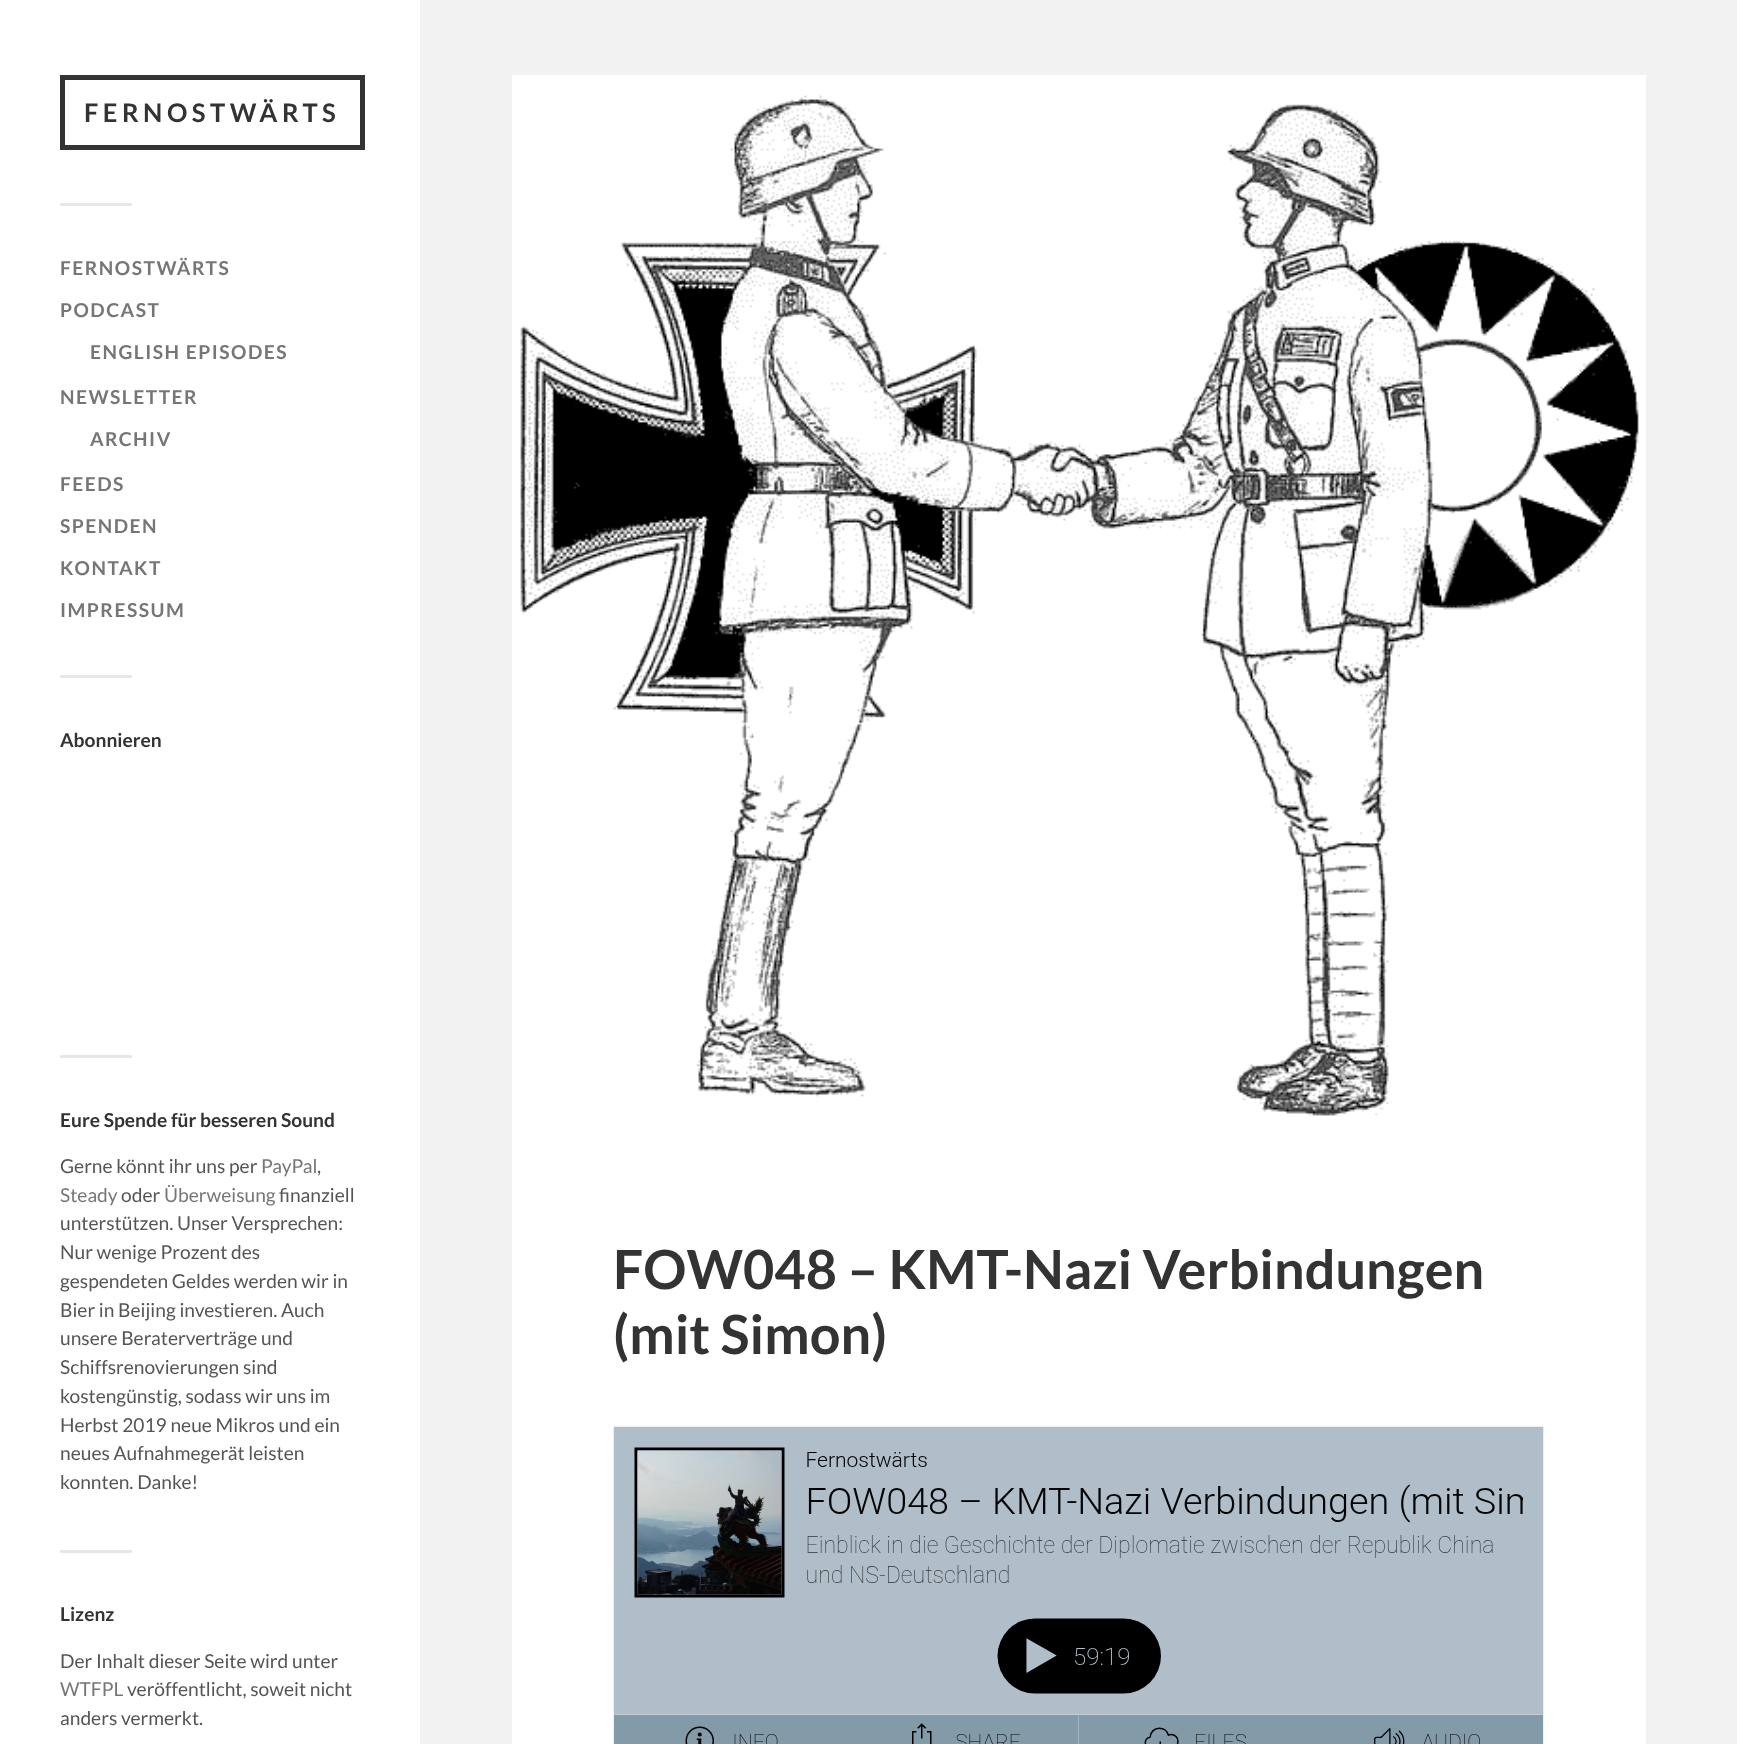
<!DOCTYPE html>
<meta charset="utf-8">
<style>body { margin: 0 } canvas { display: block }</style>
<canvas id="canvas" width="1737" height="1744"></canvas>
<script type="module">
  const canvas = document.getElementById("canvas");
  const ctx = canvas.getContext("2d");
  ctx.miterLimit = 4;
  ctx.fontKerning = "normal";
  async function loadImage(src) {
    const img = new Image();
    img.src = src;
    await img.decode();
    return img;
  }

  ctx.fillStyle = "#f2f2f2";
  ctx.fillRect(0, 0, 1737, 1744);
  ctx.fillStyle = "#ffffff";
  ctx.fillRect(0, 0, 420, 1744);
  ctx.strokeStyle = "#333333";
  ctx.lineWidth = 5;
  ctx.strokeRect(62.5, 77.5, 300, 70);
  ctx.letterSpacing = "4.5px";
  ctx.font = "bold 25.5px Lato";
  ctx.fillStyle = "#333333";
  ctx.fillText("FERNOSTWÄRTS", 84, 122);
  ctx.fillStyle = "#e7e7e7";
  ctx.fillRect(60, 203, 72, 3);
  ctx.letterSpacing = "1.5px";
  ctx.font = "bold 19.2px Lato";
  ctx.fillStyle = "#767676";
  ctx.fillText("FERNOSTWÄRTS", 60, 275);
  ctx.fillText("PODCAST", 60, 317);
  ctx.fillText("ENGLISH EPISODES", 90, 359);
  ctx.fillText("NEWSLETTER", 60, 404);
  ctx.fillText("ARCHIV", 90, 446);
  ctx.fillText("FEEDS", 60, 491);
  ctx.fillText("SPENDEN", 60, 533);
  ctx.fillText("KONTAKT", 60, 575);
  ctx.fillText("IMPRESSUM", 60, 617);
  ctx.fillStyle = "#e7e7e7";
  ctx.fillRect(60, 675, 72, 3);
  ctx.letterSpacing = "0px";
  ctx.fillStyle = "#333333";
  ctx.fillText("Abonnieren", 60, 747);
  ctx.fillStyle = "#e7e7e7";
  ctx.fillRect(60, 1055, 72, 3);
  ctx.fillStyle = "#333333";
  ctx.fillText("Eure Spende für besseren Sound", 60, 1127);
  ctx.font = "19.2px Lato";
  ctx.fillStyle = "#555555";
  ctx.fillText("Gerne könnt ihr uns per", 60, 1173);
  ctx.fillStyle = "#767676";
  ctx.fillText("PayPal", 261, 1173);
  ctx.fillStyle = "#555555";
  ctx.fillText(",", 317, 1173);
  ctx.fillStyle = "#767676";
  ctx.fillText("Steady", 60, 1202);
  ctx.fillStyle = "#555555";
  ctx.fillText("oder", 121, 1202);
  ctx.fillStyle = "#767676";
  ctx.fillText("Überweisung", 164, 1202);
  ctx.fillStyle = "#555555";
  ctx.fillText("finanziell", 279, 1202);
  ctx.fillText("unterstützen. Unser Versprechen:", 60, 1230);
  ctx.fillText("Nur wenige Prozent des", 60, 1259);
  ctx.fillText("gespendeten Geldes werden wir in", 60, 1288);
  ctx.fillText("Bier in Beijing investieren. Auch", 60, 1317);
  ctx.fillText("unsere Beraterverträge und", 60, 1345);
  ctx.fillText("Schiffsrenovierungen sind", 60, 1374);
  ctx.fillText("kostengünstig, sodass wir uns im", 60, 1403);
  ctx.fillText("Herbst 2019 neue Mikros und ein", 60, 1432);
  ctx.fillText("neues Aufnahmegerät leisten", 60, 1460);
  ctx.fillText("konnten. Danke!", 60, 1489);
  ctx.fillStyle = "#e7e7e7";
  ctx.fillRect(60, 1550, 72, 3);
  ctx.font = "bold 19.2px Lato";
  ctx.fillStyle = "#333333";
  ctx.fillText("Lizenz", 60, 1621);
  ctx.font = "19.2px Lato";
  ctx.fillStyle = "#555555";
  ctx.fillText("Der Inhalt dieser Seite wird unter", 60, 1668);
  ctx.fillStyle = "#767676";
  ctx.fillText("WTFPL", 60, 1696);
  ctx.fillStyle = "#555555";
  ctx.fillText("veröffentlicht, soweit nicht", 127, 1696);
  ctx.fillText("anders vermerkt.", 60, 1725);
  ctx.fillStyle = "#ffffff";
  ctx.fillRect(512, 75, 1134, 1669);
  ctx.drawImage(await loadImage("img1.png"), 520, 95, 1119, 1021);
  ctx.font = "bold 54px Lato";
  ctx.fillStyle = "#333333";
  ctx.fillText("FOW048 – KMT-Nazi Verbindungen", 613, 1289);
  ctx.fillText("(mit Simon)", 613, 1354);
  ctx.drawImage(await loadImage("img2.png"), 613, 1426, 931, 318);
</script>
